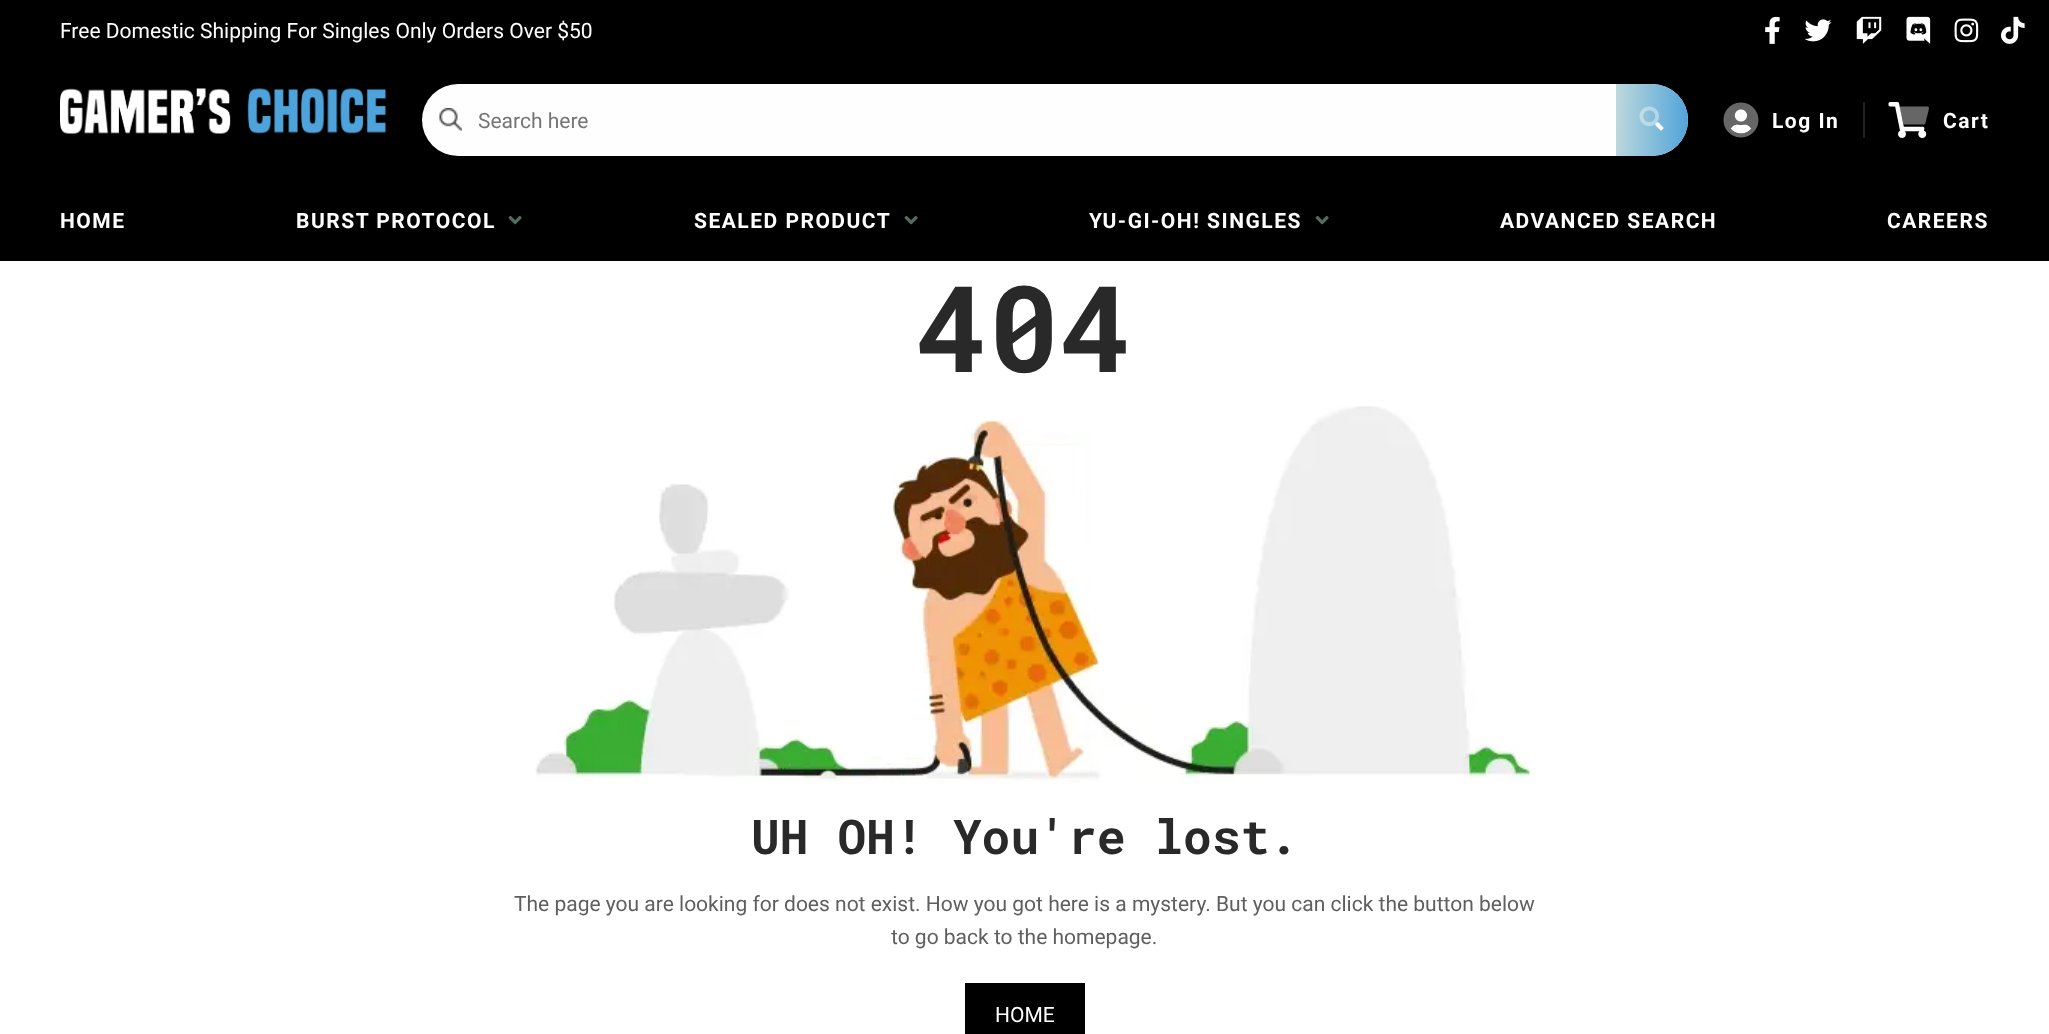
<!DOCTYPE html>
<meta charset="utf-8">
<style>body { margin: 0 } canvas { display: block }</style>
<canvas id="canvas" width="2049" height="1034"></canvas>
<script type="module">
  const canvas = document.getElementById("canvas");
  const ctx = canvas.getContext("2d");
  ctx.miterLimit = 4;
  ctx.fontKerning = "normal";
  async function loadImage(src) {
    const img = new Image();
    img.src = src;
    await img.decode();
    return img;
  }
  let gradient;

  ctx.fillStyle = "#ffffff";
  ctx.fillRect(0, 0, 2049, 1034);
  ctx.fillStyle = "#000000";
  ctx.fillRect(0, 0, 2049, 261);
  ctx.font = "21px Roboto";
  ctx.fillStyle = "#ffffff";
  ctx.fillText("Free Domestic Shipping For Singles Only Orders Over $50", 60, 38);
  ctx.drawImage(await loadImage("img1.png"), 1765, 16, 15, 28);
  ctx.drawImage(await loadImage("img2.png"), 1804, 19, 28, 23);
  ctx.drawImage(await loadImage("img3.png"), 1856, 16, 26, 28);
  ctx.drawImage(await loadImage("img4.png"), 1906, 16, 25, 28);
  ctx.drawImage(await loadImage("img5.png"), 1954, 18, 25, 25);
  ctx.drawImage(await loadImage("img6.png"), 2001, 16, 24, 28);
  ctx.drawImage(await loadImage("img7.png"), 60, 88, 326, 46);
  ctx.fillStyle = "#fefefe";
  ctx.beginPath();
  ctx.roundRect(422, 84, 1266, 72, 36);
  ctx.fill();
  ctx.drawImage(await loadImage("img8.png"), 439, 108, 23, 23);
  ctx.fillStyle = "#757575";
  ctx.fillText("Search here", 478, 128);
  gradient = ctx.createLinearGradient(1688, 121, 1615, 119);
  gradient.addColorStop(0, "#51a4da");
  gradient.addColorStop(1, "#bed9dc");
  ctx.fillStyle = gradient;
  ctx.beginPath();
  ctx.roundRect(1616, 84, 72, 72, [0, 36, 36, 0]);
  ctx.fill();
  ctx.drawImage(await loadImage("img10.png"), 1655, 122, 9, 9);
  ctx.drawImage(await loadImage("img9.png"), 1639, 106, 20, 20);
  ctx.fillStyle = "#242424";
  ctx.fillRect(1863, 102, 2, 36);
  ctx.drawImage(await loadImage("img12.png"), 1730, 109, 22, 25);
  ctx.drawImage(await loadImage("img11.png"), 1723, 102, 36, 36);
  ctx.letterSpacing = "1.5px";
  ctx.font = "bold 21px Roboto";
  ctx.fillStyle = "#ffffff";
  ctx.fillText("Log In", 1772, 128);
  ctx.drawImage(await loadImage("img13.png"), 1888, 102, 39, 36);
  ctx.fillStyle = "rgba(255, 255, 255, 0.4)";
  ctx.beginPath();
  ctx.moveTo(1927.5, 106.5);
  ctx.bezierCurveTo(1930, 106.5, 1928.5, 109.5, 1928.5, 111);
  ctx.lineTo(1926, 120.5);
  ctx.bezierCurveTo(1925, 125, 1925.5, 124.5, 1920.5, 124.5);
  ctx.lineTo(1903.5, 124.5);
  ctx.lineTo(1899.5, 106.5);
  ctx.closePath();
  ctx.fill();
  ctx.fillStyle = "#ffffff";
  ctx.fillText("Cart", 1943, 128);
  ctx.fillText("HOME", 60, 228);
  ctx.fillText("BURST PROTOCOL", 296, 228);
  ctx.drawImage(await loadImage("img14.png"), 508, 215, 14, 10);
  ctx.fillText("SEALED PRODUCT", 694, 228);
  ctx.drawImage(await loadImage("img14.png"), 904, 215, 14, 10);
  ctx.fillText("YU-GI-OH! SINGLES", 1089, 228);
  ctx.drawImage(await loadImage("img14.png"), 1315, 215, 14, 10);
  ctx.fillText("ADVANCED SEARCH", 1500, 228);
  ctx.fillText("CAREERS", 1887, 228);
  ctx.drawImage(await loadImage("img15.png"), 535, 406, 996, 378);
  ctx.letterSpacing = "0px";
  ctx.font = "bold 120px Roboto Mono";
  ctx.fillStyle = "#292929";
  ctx.fillText("404", 916, 372);
  ctx.font = "bold 48px Roboto Mono";
  ctx.fillText("UH OH! You're lost.", 751, 854);
  ctx.font = "21px Roboto";
  ctx.fillStyle = "#5f5f5f";
  ctx.fillText("The page you are looking for does not exist. How you got here is a mystery. But you can click the button below", 514, 911);
  ctx.fillText("to go back to the homepage.", 891, 944);
  ctx.fillStyle = "#000000";
  ctx.fillRect(965, 983, 120, 51);
  ctx.fillStyle = "#ffffff";
  ctx.fillText("HOME", 995, 1022);
</script>
